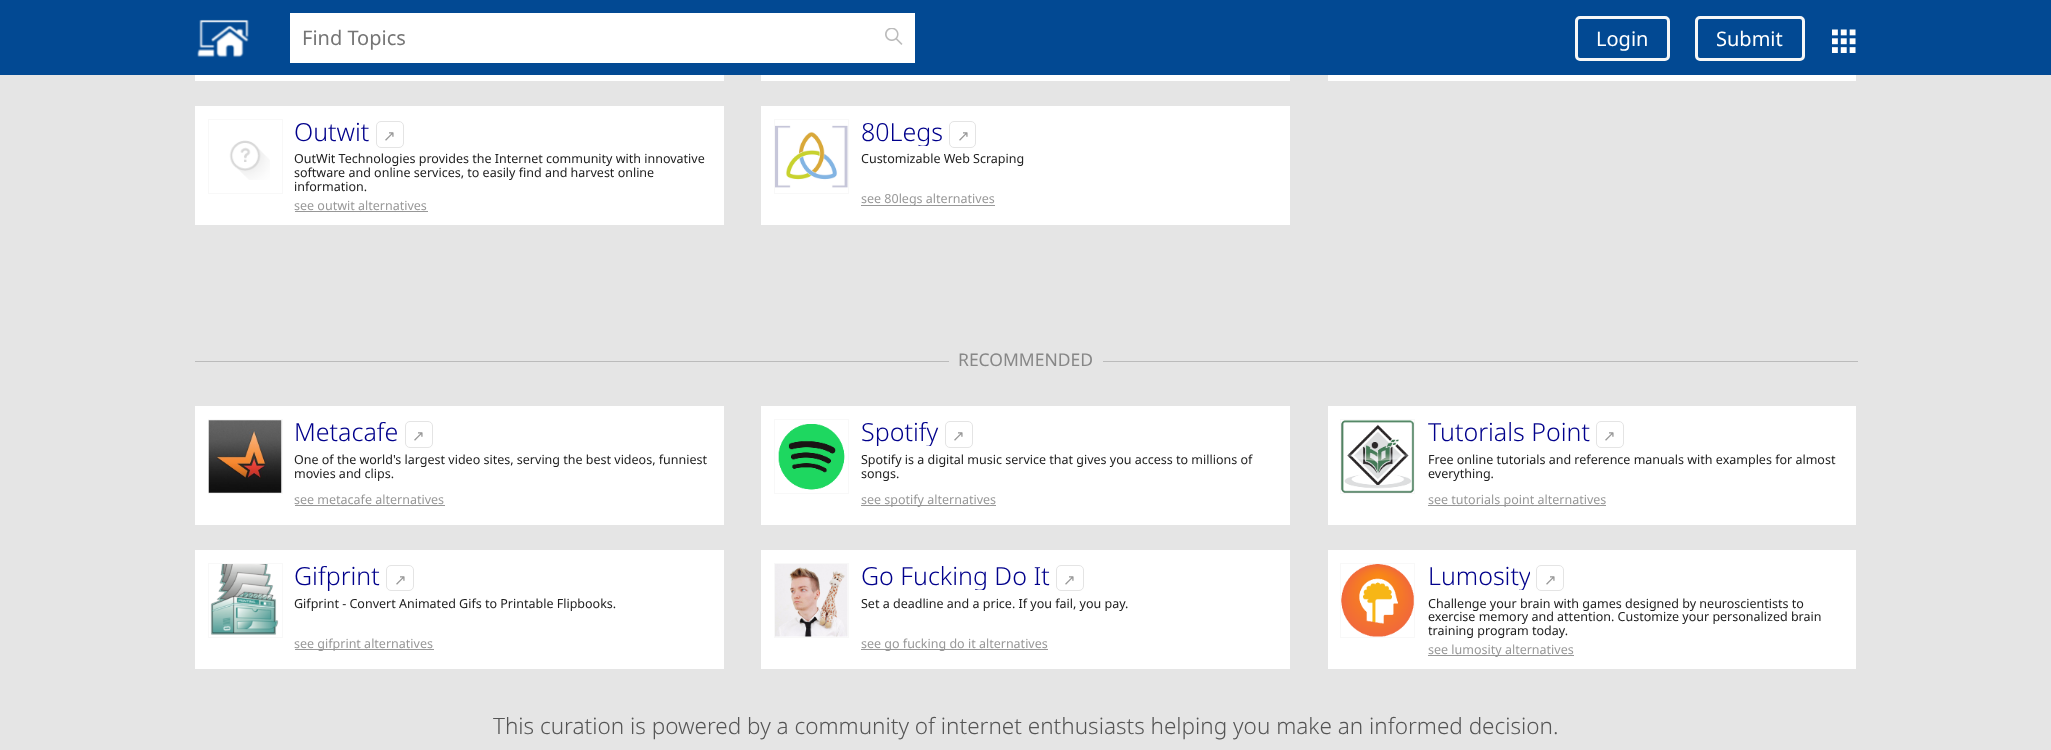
<!DOCTYPE html>
<meta charset="utf-8">
<style>body { margin: 0 } canvas { display: block }</style>
<canvas id="canvas" width="2051" height="750"></canvas>
<script type="module">
  const canvas = document.getElementById("canvas");
  const ctx = canvas.getContext("2d");
  ctx.miterLimit = 4;
  ctx.fontKerning = "normal";
  async function loadImage(src) {
    const img = new Image();
    img.src = src;
    await img.decode();
    return img;
  }

  ctx.fillStyle = "#e5e5e5";
  ctx.fillRect(0, 0, 2051, 750);
  ctx.fillStyle = "#024993";
  ctx.fillRect(0, 0, 2051, 75);
  ctx.drawImage(await loadImage("img1.png"), 197, 19, 52, 39);
  ctx.fillStyle = "#ffffff";
  ctx.fillRect(290, 13, 625, 50);
  ctx.font = "20px Noto Sans";
  ctx.fillStyle = "#757575";
  ctx.fillText("Find Topics", 302, 45);
  ctx.drawImage(await loadImage("img2.png"), 885, 28, 18, 17);
  ctx.beginPath();
  ctx.roundRect(1576.5, 17.5, 92, 42, 3.5);
  ctx.strokeStyle = "#f7f7f7";
  ctx.lineWidth = 3;
  ctx.stroke();
  ctx.fillStyle = "#ffffff";
  ctx.fillText("Login", 1596, 46);
  ctx.beginPath();
  ctx.roundRect(1696.5, 17.5, 107, 42, 3.5);
  ctx.stroke();
  ctx.fillText("Submit", 1716, 46);
  ctx.drawImage(await loadImage("img3.png"), 1832, 29, 24, 24);
  ctx.fillRect(195, 75, 529, 6);
  ctx.fillRect(761, 75, 529, 6);
  ctx.fillRect(1328, 75, 528, 6);
  ctx.fillRect(195, 106, 529, 119);
  ctx.strokeStyle = "#f8f8f8";
  ctx.lineWidth = 1;
  ctx.strokeRect(208.5, 119.5, 74, 74);
  ctx.drawImage(await loadImage("img4.png"), 229, 140, 41, 40);
  ctx.font = "300 25px Noto Sans";
  ctx.fillStyle = "#00008b";
  ctx.fillText("Outwit", 294, 141);
  ctx.beginPath();
  ctx.roundRect(376.5, 121.5, 27, 26, 4.5);
  ctx.strokeStyle = "#e4e4e4";
  ctx.stroke();
  ctx.font = "15px DejaVu Sans";
  ctx.fillStyle = "#989898";
  ctx.fillText("↗", 383, 141);
  ctx.font = "12.5px Noto Sans";
  ctx.fillStyle = "#212121";
  ctx.fillText("OutWit Technologies provides the Internet community with innovative", 294, 163);
  ctx.fillText("software and online services, to easily find and harvest online", 294, 177);
  ctx.fillText("information.", 294, 191);
  ctx.fillStyle = "#989898";
  ctx.fillText("see outwit alternatives", 294, 210);
  ctx.fillRect(295, 211, 133, 1);
  ctx.fillStyle = "#ffffff";
  ctx.fillRect(761, 106, 529, 119);
  ctx.strokeStyle = "#f8f8f8";
  ctx.strokeRect(774.5, 119.5, 74, 74);
  ctx.drawImage(await loadImage("img5.png"), 775, 125, 73, 63);
  ctx.save();
  ctx.beginPath();
  ctx.rect(861, 119, 82, 27);
  ctx.clip();
  ctx.font = "300 25px Noto Sans";
  ctx.fillStyle = "#00008b";
  ctx.fillText("80Legs", 861, 141);
  ctx.restore();
  ctx.beginPath();
  ctx.roundRect(949.5, 121.5, 26, 26, 4.5);
  ctx.strokeStyle = "#e4e4e4";
  ctx.stroke();
  ctx.font = "15px DejaVu Sans";
  ctx.fillStyle = "#989898";
  ctx.fillText("↗", 957, 141);
  ctx.font = "12.5px Noto Sans";
  ctx.fillStyle = "#212121";
  ctx.fillText("Customizable Web Scraping", 861, 163);
  ctx.fillStyle = "#989898";
  ctx.fillRect(861, 205, 134, 1);
  ctx.fillText("see 80legs alternatives", 861, 203);
  ctx.fillStyle = "#bbbbbb";
  ctx.fillRect(195, 361, 754, 1);
  ctx.font = "17.5px Noto Sans";
  ctx.fillStyle = "#878787";
  ctx.fillText("RECOMMENDED", 958, 366);
  ctx.fillStyle = "#bbbbbb";
  ctx.fillRect(1103, 361, 755, 1);
  ctx.fillStyle = "#ffffff";
  ctx.fillRect(195, 406, 529, 119);
  ctx.strokeStyle = "#f8f8f8";
  ctx.strokeRect(208.5, 419.5, 74, 74);
  ctx.drawImage(await loadImage("img6.png"), 208, 420, 74, 73);
  ctx.font = "300 25px Noto Sans";
  ctx.fillStyle = "#00008b";
  ctx.fillText("Metacafe", 294, 441);
  ctx.beginPath();
  ctx.roundRect(405.5, 421.5, 27, 26, 4.5);
  ctx.strokeStyle = "#e4e4e4";
  ctx.stroke();
  ctx.font = "15px DejaVu Sans";
  ctx.fillStyle = "#989898";
  ctx.fillText("↗", 412, 441);
  ctx.font = "12.5px Noto Sans";
  ctx.fillStyle = "#212121";
  ctx.fillText("One of the world's largest video sites, serving the best videos, funniest", 294, 464);
  ctx.fillText("movies and clips.", 294, 478);
  ctx.fillStyle = "#989898";
  ctx.fillText("see metacafe alternatives", 294, 504);
  ctx.fillRect(295, 505, 150, 1);
  ctx.fillStyle = "#ffffff";
  ctx.fillRect(761, 406, 529, 119);
  ctx.strokeStyle = "#f8f8f8";
  ctx.strokeRect(774.5, 419.5, 74, 74);
  ctx.drawImage(await loadImage("img7.png"), 778, 424, 67, 66);
  ctx.save();
  ctx.beginPath();
  ctx.rect(861, 419, 78, 27);
  ctx.clip();
  ctx.font = "300 25px Noto Sans";
  ctx.fillStyle = "#00008b";
  ctx.fillText("Spotify", 861, 441);
  ctx.restore();
  ctx.beginPath();
  ctx.roundRect(945.5, 421.5, 27, 26, 4.5);
  ctx.strokeStyle = "#e4e4e4";
  ctx.stroke();
  ctx.font = "15px DejaVu Sans";
  ctx.fillStyle = "#989898";
  ctx.fillText("↗", 952, 441);
  ctx.font = "12.5px Noto Sans";
  ctx.fillStyle = "#212121";
  ctx.fillText("Spotify is a digital music service that gives you access to millions of", 861, 464);
  ctx.fillText("songs.", 861, 478);
  ctx.fillStyle = "#989898";
  ctx.fillRect(861, 505, 135, 1);
  ctx.fillText("see spotify alternatives", 861, 504);
  ctx.fillStyle = "#ffffff";
  ctx.fillRect(1328, 406, 528, 119);
  ctx.strokeStyle = "#f8f8f8";
  ctx.strokeRect(1340.5, 419.5, 74, 74);
  ctx.drawImage(await loadImage("img8.png"), 1341, 420, 73, 73);
  ctx.font = "300 25px Noto Sans";
  ctx.fillStyle = "#00008b";
  ctx.fillText("Tutorials Point", 1428, 441);
  ctx.beginPath();
  ctx.roundRect(1596.5, 421.5, 27, 26, 4.5);
  ctx.strokeStyle = "#e4e4e4";
  ctx.stroke();
  ctx.font = "15px DejaVu Sans";
  ctx.fillStyle = "#989898";
  ctx.fillText("↗", 1603, 441);
  ctx.font = "12.5px Noto Sans";
  ctx.fillStyle = "#212121";
  ctx.fillText("Free online tutorials and reference manuals with examples for almost", 1428, 464);
  ctx.fillText("everything.", 1428, 478);
  ctx.fillStyle = "#989898";
  ctx.fillRect(1428, 505, 178, 1);
  ctx.fillText("see tutorials point alternatives", 1428, 504);
  ctx.fillStyle = "#ffffff";
  ctx.fillRect(195, 550, 529, 119);
  ctx.strokeStyle = "#f8f8f8";
  ctx.strokeRect(208.5, 563.5, 74, 74);
  ctx.drawImage(await loadImage("img9.png"), 210, 564, 69, 71);
  ctx.font = "300 25px Noto Sans";
  ctx.fillStyle = "#00008b";
  ctx.fillText("Gifprint", 294, 585);
  ctx.beginPath();
  ctx.roundRect(386.5, 565.5, 27, 25, 4.5);
  ctx.strokeStyle = "#e4e4e4";
  ctx.stroke();
  ctx.font = "15px DejaVu Sans";
  ctx.fillStyle = "#989898";
  ctx.fillText("↗", 394, 585);
  ctx.font = "12.5px Noto Sans";
  ctx.fillStyle = "#212121";
  ctx.fillText("Gifprint - Convert Animated Gifs to Printable Flipbooks.", 294, 608);
  ctx.fillStyle = "#989898";
  ctx.fillRect(295, 649, 139, 1);
  ctx.fillText("see gifprint alternatives", 294, 648);
  ctx.fillStyle = "#ffffff";
  ctx.fillRect(761, 550, 529, 119);
  ctx.strokeStyle = "#f8f8f8";
  ctx.strokeRect(774.5, 563.5, 74, 74);
  ctx.drawImage(await loadImage("img10.png"), 775, 564, 73, 73);
  ctx.save();
  ctx.beginPath();
  ctx.rect(861, 563, 189, 27);
  ctx.clip();
  ctx.font = "300 25px Noto Sans";
  ctx.fillStyle = "#00008b";
  ctx.fillText("Go Fucking Do It", 861, 585);
  ctx.restore();
  ctx.beginPath();
  ctx.roundRect(1056.5, 565.5, 27, 25, 4.5);
  ctx.strokeStyle = "#e4e4e4";
  ctx.stroke();
  ctx.font = "15px DejaVu Sans";
  ctx.fillStyle = "#989898";
  ctx.fillText("↗", 1063, 585);
  ctx.font = "12.5px Noto Sans";
  ctx.fillStyle = "#212121";
  ctx.fillText("Set a deadline and a price. If you fail, you pay.", 861, 608);
  ctx.fillStyle = "#989898";
  ctx.fillRect(861, 649, 187, 1);
  ctx.fillText("see go fucking do it alternatives", 861, 648);
  ctx.fillStyle = "#ffffff";
  ctx.fillRect(1328, 550, 528, 119);
  ctx.strokeStyle = "#f8f8f8";
  ctx.strokeRect(1340.5, 563.5, 74, 74);
  ctx.drawImage(await loadImage("img11.png"), 1341, 564, 73, 73);
  ctx.save();
  ctx.beginPath();
  ctx.rect(1428, 563, 102, 27);
  ctx.clip();
  ctx.font = "300 25px Noto Sans";
  ctx.fillStyle = "#00008b";
  ctx.fillText("Lumosity", 1428, 585);
  ctx.restore();
  ctx.beginPath();
  ctx.roundRect(1536.5, 565.5, 27, 25, 4.5);
  ctx.strokeStyle = "#e4e4e4";
  ctx.stroke();
  ctx.font = "15px DejaVu Sans";
  ctx.fillStyle = "#989898";
  ctx.fillText("↗", 1544, 585);
  ctx.font = "12.5px Noto Sans";
  ctx.fillStyle = "#212121";
  ctx.fillText("Challenge your brain with games designed by neuroscientists to", 1428, 608);
  ctx.fillText("exercise memory and attention. Customize your personalized brain", 1428, 621);
  ctx.fillText("training program today.", 1428, 635);
  ctx.fillStyle = "#989898";
  ctx.fillRect(1428, 655, 73, 1);
  ctx.fillText("see lumosity alternatives", 1428, 654);
  ctx.fillRect(1501, 655, 73, 1);
  ctx.font = "300 22.5px Noto Sans";
  ctx.fillStyle = "#555555";
  ctx.fillText("This curation is powered by a community of internet enthusiasts helping you make an informed decision.", 493, 734);
</script>
